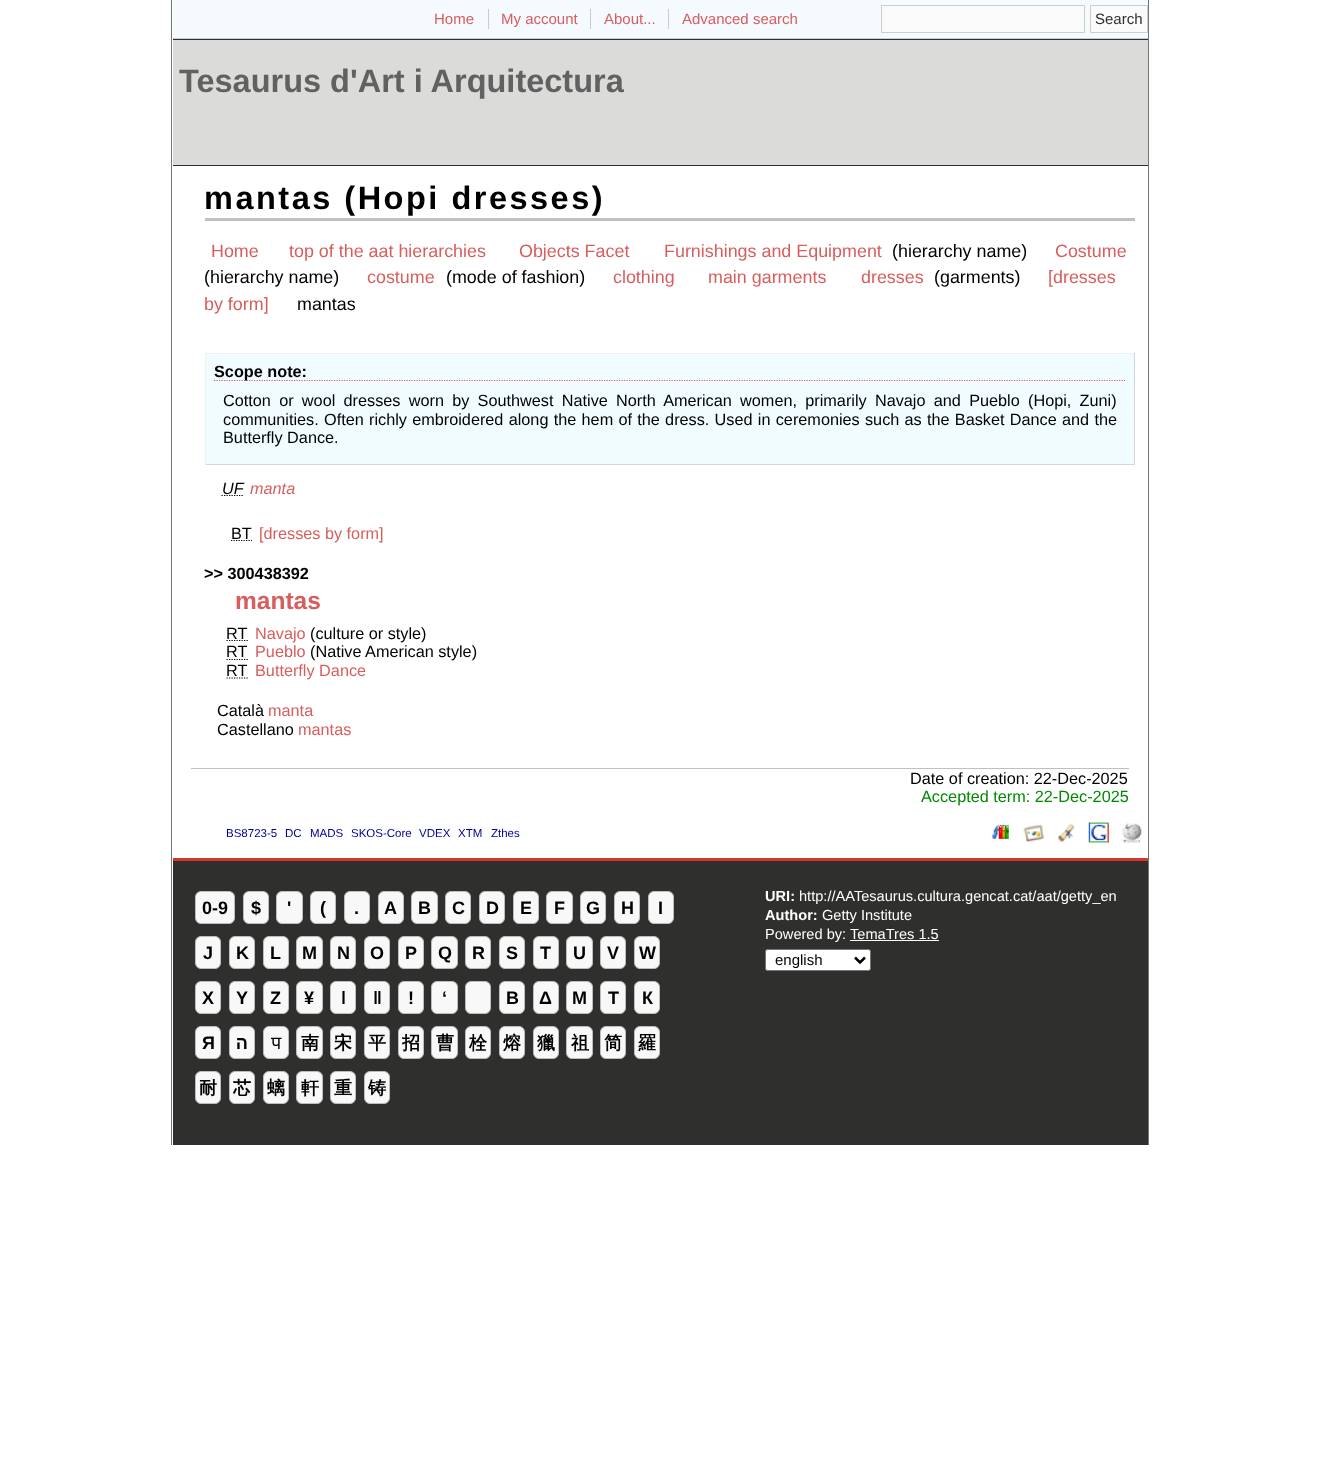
<!DOCTYPE html>
<meta charset="utf-8">
<style>body { margin: 0 } canvas { display: block }</style>
<canvas id="canvas" width="1320" height="1462"></canvas>
<script type="module">
  const canvas = document.getElementById("canvas");
  const ctx = canvas.getContext("2d");
  ctx.miterLimit = 4;
  ctx.fontKerning = "normal";
  async function loadImage(src) {
    const img = new Image();
    img.src = src;
    await img.decode();
    return img;
  }

  ctx.fillStyle = "#ffffff";
  ctx.fillRect(0, 0, 1320, 1462);
  ctx.fillStyle = "#757575";
  ctx.fillRect(1148, 0, 1, 1145);
  ctx.fillRect(171, 0, 1, 1145);
  ctx.fillStyle = "#f4fafe";
  ctx.fillRect(173, 0, 975, 38);
  ctx.fillStyle = "#c0d1db";
  ctx.fillRect(173, 38, 975, 1);
  ctx.font = "15px Liberation Sans";
  ctx.fillStyle = "#d85d5d";
  ctx.fillText("Home", 434, 24);
  ctx.fillText("My account", 501, 24);
  ctx.fillStyle = "#cccccc";
  ctx.fillRect(488, 9, 1, 20);
  ctx.fillStyle = "#d85d5d";
  ctx.fillText("About...", 604, 24);
  ctx.fillStyle = "#cccccc";
  ctx.fillRect(590, 9, 1, 20);
  ctx.fillStyle = "#d85d5d";
  ctx.fillText("Advanced search", 682, 24);
  ctx.fillStyle = "#cccccc";
  ctx.fillRect(668, 9, 1, 20);
  ctx.fillStyle = "#fafafa";
  ctx.beginPath();
  ctx.rect(881.5, 5.5, 203, 27);
  ctx.fill();
  ctx.strokeStyle = "#cccccc";
  ctx.stroke();
  ctx.beginPath();
  ctx.rect(1090.5, 5.5, 57, 27);
  ctx.fill();
  ctx.stroke();
  ctx.fillStyle = "#2f2f2e";
  ctx.fillText("Search", 1095, 24);
  ctx.fillStyle = "#dbdbd9";
  ctx.fillRect(173, 40, 975, 125);
  ctx.fillStyle = "#2f2f2e";
  ctx.fillRect(173, 39, 975, 1);
  ctx.fillRect(173, 165, 975, 1);
  ctx.font = "bold 32.5px Liberation Sans";
  ctx.fillStyle = "#616161";
  ctx.fillText("Tesaurus d'Art i Arquitectura", 179, 92);
  ctx.fillStyle = "#c0c0c0";
  ctx.fillRect(205, 218, 930, 3);
  ctx.letterSpacing = "2.5px";
  ctx.fillStyle = "#000000";
  ctx.fillText("mantas (Hopi dresses)", 204, 209);
  ctx.letterSpacing = "0px";
  ctx.font = "17.9px Liberation Sans";
  ctx.fillStyle = "#d85d5d";
  ctx.fillText("Home", 211, 257);
  ctx.fillText("top of the aat hierarchies", 289, 257);
  ctx.fillText("Objects Facet", 519, 257);
  ctx.fillText("Furnishings and Equipment", 664, 257);
  ctx.fillStyle = "#000000";
  ctx.fillText("(hierarchy name)", 892, 257);
  ctx.fillStyle = "#d85d5d";
  ctx.fillText("Costume", 1055, 257);
  ctx.fillStyle = "#000000";
  ctx.fillText("(hierarchy name)", 204, 283);
  ctx.fillStyle = "#d85d5d";
  ctx.fillText("costume", 367, 283);
  ctx.fillStyle = "#000000";
  ctx.fillText("(mode of fashion)", 446, 283);
  ctx.fillStyle = "#d85d5d";
  ctx.fillText("clothing", 613, 283);
  ctx.fillText("main garments", 708, 283);
  ctx.fillText("dresses", 861, 283);
  ctx.fillStyle = "#000000";
  ctx.fillText("(garments)", 934, 283);
  ctx.fillStyle = "#d85d5d";
  ctx.fillText("[dresses", 1048, 283);
  ctx.fillText("by form]", 204, 310);
  ctx.fillStyle = "#000000";
  ctx.fillText("mantas", 297, 310);
  ctx.fillStyle = "#f0fcff";
  ctx.fillRect(206, 354, 928, 110);
  ctx.fillStyle = "#f0f0f0";
  ctx.fillRect(205, 353, 930, 1);
  ctx.fillStyle = "#d6d6d6";
  ctx.fillRect(1134, 353, 1, 112);
  ctx.fillRect(205, 464, 930, 1);
  ctx.fillStyle = "#f0f0f0";
  ctx.fillRect(205, 353, 1, 112);
  ctx.beginPath();
  ctx.moveTo(214, 380.5);
  ctx.lineTo(1126, 380.5);
  ctx.strokeStyle = "#d85d5d";
  ctx.lineWidth = 1.2;
  ctx.setLineDash([1.25, 1.25]);
  ctx.stroke();
  ctx.font = "bold 16.25px Liberation Sans";
  ctx.fillStyle = "#000000";
  ctx.fillText("Scope note:", 214, 377);
  ctx.wordSpacing = "3.75px";
  ctx.font = "16.25px Liberation Sans";
  ctx.fillText("Cotton or wool dresses worn by Southwest Native North American women, primarily Navajo and Pueblo (Hopi, Zuni)", 223, 406);
  ctx.wordSpacing = "0.75px";
  ctx.fillText("communities. Often richly embroidered along the hem of the dress. Used in ceremonies such as the Basket Dance and the", 223, 425);
  ctx.wordSpacing = "0px";
  ctx.fillText("Butterfly Dance.", 223, 443);
  ctx.beginPath();
  ctx.moveTo(221.5, 495.5);
  ctx.lineTo(243.5, 495.5);
  ctx.strokeStyle = "#000000";
  ctx.stroke();
  ctx.font = "italic 16.25px Liberation Sans";
  ctx.fillText("UF", 222, 494);
  ctx.fillStyle = "#d85d5d";
  ctx.fillText("manta", 250, 494);
  ctx.font = "16.25px Liberation Sans";
  ctx.fillStyle = "#000000";
  ctx.fillText("BT", 231, 539);
  ctx.beginPath();
  ctx.moveTo(231, 540.5);
  ctx.lineTo(252, 540.5);
  ctx.stroke();
  ctx.fillStyle = "#d85d5d";
  ctx.fillText("[dresses by form]", 259, 539);
  ctx.font = "bold 16.25px Liberation Sans";
  ctx.fillStyle = "#000000";
  ctx.fillText(">> 300438392", 204, 579);
  ctx.font = "bold 24.5px Liberation Sans";
  ctx.fillStyle = "#d85d5d";
  ctx.fillText("mantas", 235, 609);
  ctx.font = "16.25px Liberation Sans";
  ctx.fillStyle = "#000000";
  ctx.fillText("RT", 226, 639);
  ctx.beginPath();
  ctx.moveTo(226.5, 640.5);
  ctx.lineTo(248, 640.5);
  ctx.stroke();
  ctx.fillStyle = "#d85d5d";
  ctx.fillText("Navajo", 255, 639);
  ctx.fillStyle = "#000000";
  ctx.fillText("(culture or style)", 310, 639);
  ctx.fillText("RT", 226, 657);
  ctx.beginPath();
  ctx.moveTo(226.5, 659.5);
  ctx.lineTo(248, 659.5);
  ctx.stroke();
  ctx.fillStyle = "#d85d5d";
  ctx.fillText("Pueblo", 255, 657);
  ctx.fillStyle = "#000000";
  ctx.fillText("(Native American style)", 310, 657);
  ctx.fillText("RT", 226, 676);
  ctx.beginPath();
  ctx.moveTo(226.5, 678);
  ctx.lineTo(248, 678);
  ctx.stroke();
  ctx.fillStyle = "#d85d5d";
  ctx.fillText("Butterfly Dance", 255, 676);
  ctx.fillStyle = "#000000";
  ctx.fillText("Català", 217, 716);
  ctx.fillStyle = "#d85d5d";
  ctx.fillText("manta", 268, 716);
  ctx.fillStyle = "#000000";
  ctx.fillText("Castellano", 217, 735);
  ctx.fillStyle = "#d85d5d";
  ctx.fillText("mantas", 298, 735);
  ctx.fillStyle = "#c0c0c0";
  ctx.fillRect(191, 768, 938, 1);
  ctx.fillStyle = "#000000";
  ctx.fillText("Date of creation: 22-Dec-2025", 910, 784);
  ctx.fillStyle = "#008800";
  ctx.fillText("Accepted term: 22-Dec-2025", 921, 802);
  ctx.font = "11.5px Liberation Sans";
  ctx.fillStyle = "#000099";
  ctx.fillText("BS8723-5", 226, 837);
  ctx.fillText("DC", 285, 837);
  ctx.fillText("MADS", 310, 837);
  ctx.fillText("SKOS-Core", 351, 837);
  ctx.fillText("VDEX", 419, 837);
  ctx.fillText("XTM", 458, 837);
  ctx.fillText("Zthes", 491, 837);
  ctx.drawImage(await loadImage("img1.png"), 991, 824, 18, 16);
  ctx.drawImage(await loadImage("img2.png"), 1023, 824, 21, 18);
  ctx.drawImage(await loadImage("img3.png"), 1057, 823, 18, 19);
  ctx.drawImage(await loadImage("img4.png"), 1088, 822, 21, 21);
  ctx.drawImage(await loadImage("img5.png"), 1121, 823, 21, 20);
  ctx.fillStyle = "#2f2f2e";
  ctx.fillRect(173, 861, 975, 284);
  ctx.fillStyle = "#d7372a";
  ctx.fillRect(173, 858, 975, 3);
  ctx.fillStyle = "#f8f8f8";
  ctx.beginPath();
  ctx.roundRect(195.5, 891.5, 39, 32, 5.5);
  ctx.fill();
  ctx.strokeStyle = "#bdbdbd";
  ctx.lineWidth = 1;
  ctx.setLineDash([]);
  ctx.stroke();
  ctx.font = "bold 18px Liberation Sans";
  ctx.fillStyle = "#000000";
  ctx.fillText("0-9", 202, 914);
  ctx.fillStyle = "#f8f8f8";
  ctx.beginPath();
  ctx.roundRect(243.5, 891.5, 25, 32, 5.5);
  ctx.fill();
  ctx.stroke();
  ctx.fillStyle = "#000000";
  ctx.fillText("$", 251, 914);
  ctx.fillStyle = "#f8f8f8";
  ctx.beginPath();
  ctx.roundRect(276.5, 891.5, 26, 32, 5.5);
  ctx.fill();
  ctx.stroke();
  ctx.fillStyle = "#000000";
  ctx.fillText("'", 287, 914);
  ctx.fillStyle = "#f8f8f8";
  ctx.beginPath();
  ctx.roundRect(310.5, 891.5, 25, 32, 5.5);
  ctx.fill();
  ctx.stroke();
  ctx.fillStyle = "#000000";
  ctx.fillText("(", 320, 914);
  ctx.fillStyle = "#f8f8f8";
  ctx.beginPath();
  ctx.roundRect(344.5, 891.5, 25, 32, 5.5);
  ctx.fill();
  ctx.stroke();
  ctx.fillStyle = "#000000";
  ctx.fillText(".", 354, 914);
  ctx.fillStyle = "#f8f8f8";
  ctx.beginPath();
  ctx.roundRect(378.5, 891.5, 25, 32, 5.5);
  ctx.fill();
  ctx.stroke();
  ctx.fillStyle = "#000000";
  ctx.fillText("A", 384, 914);
  ctx.fillStyle = "#f8f8f8";
  ctx.beginPath();
  ctx.roundRect(411.5, 891.5, 26, 32, 5.5);
  ctx.fill();
  ctx.stroke();
  ctx.fillStyle = "#000000";
  ctx.fillText("B", 418, 914);
  ctx.fillStyle = "#f8f8f8";
  ctx.beginPath();
  ctx.roundRect(445.5, 891.5, 25, 32, 5.5);
  ctx.fill();
  ctx.stroke();
  ctx.fillStyle = "#000000";
  ctx.fillText("C", 452, 914);
  ctx.fillStyle = "#f8f8f8";
  ctx.beginPath();
  ctx.roundRect(479.5, 891.5, 25, 32, 5.5);
  ctx.fill();
  ctx.stroke();
  ctx.fillStyle = "#000000";
  ctx.fillText("D", 486, 914);
  ctx.fillStyle = "#f8f8f8";
  ctx.beginPath();
  ctx.roundRect(513.5, 891.5, 25, 32, 5.5);
  ctx.fill();
  ctx.stroke();
  ctx.fillStyle = "#000000";
  ctx.fillText("E", 520, 914);
  ctx.fillStyle = "#f8f8f8";
  ctx.beginPath();
  ctx.roundRect(546.5, 891.5, 26, 32, 5.5);
  ctx.fill();
  ctx.stroke();
  ctx.fillStyle = "#000000";
  ctx.fillText("F", 554, 914);
  ctx.fillStyle = "#f8f8f8";
  ctx.beginPath();
  ctx.roundRect(580.5, 891.5, 25, 32, 5.5);
  ctx.fill();
  ctx.stroke();
  ctx.fillStyle = "#000000";
  ctx.fillText("G", 586, 914);
  ctx.fillStyle = "#f8f8f8";
  ctx.beginPath();
  ctx.roundRect(614.5, 891.5, 25, 32, 5.5);
  ctx.fill();
  ctx.stroke();
  ctx.fillStyle = "#000000";
  ctx.fillText("H", 621, 914);
  ctx.fillStyle = "#f8f8f8";
  ctx.beginPath();
  ctx.roundRect(648.5, 891.5, 25, 32, 5.5);
  ctx.fill();
  ctx.stroke();
  ctx.fillStyle = "#000000";
  ctx.fillText("I", 658, 914);
  ctx.fillStyle = "#f8f8f8";
  ctx.beginPath();
  ctx.roundRect(195.5, 936.5, 25, 32, 5.5);
  ctx.fill();
  ctx.stroke();
  ctx.fillStyle = "#000000";
  ctx.fillText("J", 203, 959);
  ctx.fillStyle = "#f8f8f8";
  ctx.beginPath();
  ctx.roundRect(229.5, 936.5, 25, 32, 5.5);
  ctx.fill();
  ctx.stroke();
  ctx.fillStyle = "#000000";
  ctx.fillText("K", 236, 959);
  ctx.fillStyle = "#f8f8f8";
  ctx.beginPath();
  ctx.roundRect(263.5, 936.5, 25, 32, 5.5);
  ctx.fill();
  ctx.stroke();
  ctx.fillStyle = "#000000";
  ctx.fillText("L", 270, 959);
  ctx.fillStyle = "#f8f8f8";
  ctx.beginPath();
  ctx.roundRect(296.5, 936.5, 26, 32, 5.5);
  ctx.fill();
  ctx.stroke();
  ctx.fillStyle = "#000000";
  ctx.fillText("M", 302, 959);
  ctx.fillStyle = "#f8f8f8";
  ctx.beginPath();
  ctx.roundRect(330.5, 936.5, 25, 32, 5.5);
  ctx.fill();
  ctx.stroke();
  ctx.fillStyle = "#000000";
  ctx.fillText("N", 337, 959);
  ctx.fillStyle = "#f8f8f8";
  ctx.beginPath();
  ctx.roundRect(364.5, 936.5, 25, 32, 5.5);
  ctx.fill();
  ctx.stroke();
  ctx.fillStyle = "#000000";
  ctx.fillText("O", 370, 959);
  ctx.fillStyle = "#f8f8f8";
  ctx.beginPath();
  ctx.roundRect(398.5, 936.5, 25, 32, 5.5);
  ctx.fill();
  ctx.stroke();
  ctx.fillStyle = "#000000";
  ctx.fillText("P", 405, 959);
  ctx.fillStyle = "#f8f8f8";
  ctx.beginPath();
  ctx.roundRect(431.5, 936.5, 26, 32, 5.5);
  ctx.fill();
  ctx.stroke();
  ctx.fillStyle = "#000000";
  ctx.fillText("Q", 438, 959);
  ctx.fillStyle = "#f8f8f8";
  ctx.beginPath();
  ctx.roundRect(465.5, 936.5, 25, 32, 5.5);
  ctx.fill();
  ctx.stroke();
  ctx.fillStyle = "#000000";
  ctx.fillText("R", 472, 959);
  ctx.fillStyle = "#f8f8f8";
  ctx.beginPath();
  ctx.roundRect(499.5, 936.5, 25, 32, 5.5);
  ctx.fill();
  ctx.stroke();
  ctx.fillStyle = "#000000";
  ctx.fillText("S", 506, 959);
  ctx.fillStyle = "#f8f8f8";
  ctx.beginPath();
  ctx.roundRect(533.5, 936.5, 25, 32, 5.5);
  ctx.fill();
  ctx.stroke();
  ctx.fillStyle = "#000000";
  ctx.fillText("T", 540, 959);
  ctx.fillStyle = "#f8f8f8";
  ctx.beginPath();
  ctx.roundRect(566.5, 936.5, 26, 32, 5.5);
  ctx.fill();
  ctx.stroke();
  ctx.fillStyle = "#000000";
  ctx.fillText("U", 573, 959);
  ctx.fillStyle = "#f8f8f8";
  ctx.beginPath();
  ctx.roundRect(600.5, 936.5, 25, 32, 5.5);
  ctx.fill();
  ctx.stroke();
  ctx.fillStyle = "#000000";
  ctx.fillText("V", 607, 959);
  ctx.fillStyle = "#f8f8f8";
  ctx.beginPath();
  ctx.roundRect(634.5, 936.5, 25, 32, 5.5);
  ctx.fill();
  ctx.stroke();
  ctx.fillStyle = "#000000";
  ctx.fillText("W", 639, 959);
  ctx.fillStyle = "#f8f8f8";
  ctx.beginPath();
  ctx.roundRect(195.5, 981.5, 25, 32, 5.5);
  ctx.fill();
  ctx.stroke();
  ctx.fillStyle = "#000000";
  ctx.fillText("X", 202, 1004);
  ctx.fillStyle = "#f8f8f8";
  ctx.beginPath();
  ctx.roundRect(229.5, 981.5, 25, 32, 5.5);
  ctx.fill();
  ctx.stroke();
  ctx.fillStyle = "#000000";
  ctx.fillText("Y", 236, 1004);
  ctx.fillStyle = "#f8f8f8";
  ctx.beginPath();
  ctx.roundRect(263.5, 981.5, 25, 32, 5.5);
  ctx.fill();
  ctx.stroke();
  ctx.fillStyle = "#000000";
  ctx.fillText("Z", 270, 1004);
  ctx.fillStyle = "#f8f8f8";
  ctx.beginPath();
  ctx.roundRect(296.5, 981.5, 26, 32, 5.5);
  ctx.fill();
  ctx.stroke();
  ctx.fillStyle = "#000000";
  ctx.fillText("¥", 304, 1004);
  ctx.fillStyle = "#f8f8f8";
  ctx.beginPath();
  ctx.roundRect(330.5, 981.5, 25, 32, 5.5);
  ctx.fill();
  ctx.stroke();
  ctx.fillStyle = "#000000";
  ctx.fillText("ǀ", 341, 1004);
  ctx.fillStyle = "#f8f8f8";
  ctx.beginPath();
  ctx.roundRect(364.5, 981.5, 25, 32, 5.5);
  ctx.fill();
  ctx.stroke();
  ctx.fillStyle = "#000000";
  ctx.fillText("ǁ", 373, 1004);
  ctx.fillStyle = "#f8f8f8";
  ctx.beginPath();
  ctx.roundRect(398.5, 981.5, 25, 32, 5.5);
  ctx.fill();
  ctx.stroke();
  ctx.fillStyle = "#000000";
  ctx.fillText("ǃ", 408, 1004);
  ctx.fillStyle = "#f8f8f8";
  ctx.beginPath();
  ctx.roundRect(431.5, 981.5, 26, 32, 5.5);
  ctx.fill();
  ctx.stroke();
  ctx.fillStyle = "#000000";
  ctx.fillText("ʻ", 442, 1004);
  ctx.fillStyle = "#f8f8f8";
  ctx.beginPath();
  ctx.roundRect(465.5, 981.5, 25, 32, 5.5);
  ctx.fill();
  ctx.stroke();
  ctx.beginPath();
  ctx.roundRect(499.5, 981.5, 25, 32, 5.5);
  ctx.fill();
  ctx.stroke();
  ctx.fillStyle = "#000000";
  ctx.fillText("Β", 506, 1004);
  ctx.fillStyle = "#f8f8f8";
  ctx.beginPath();
  ctx.roundRect(533.5, 981.5, 25, 32, 5.5);
  ctx.fill();
  ctx.stroke();
  ctx.fillStyle = "#000000";
  ctx.fillText("Δ", 539, 1004);
  ctx.fillStyle = "#f8f8f8";
  ctx.beginPath();
  ctx.roundRect(566.5, 981.5, 26, 32, 5.5);
  ctx.fill();
  ctx.stroke();
  ctx.fillStyle = "#000000";
  ctx.fillText("Μ", 572, 1004);
  ctx.fillStyle = "#f8f8f8";
  ctx.beginPath();
  ctx.roundRect(600.5, 981.5, 25, 32, 5.5);
  ctx.fill();
  ctx.stroke();
  ctx.fillStyle = "#000000";
  ctx.fillText("Τ", 608, 1004);
  ctx.fillStyle = "#f8f8f8";
  ctx.beginPath();
  ctx.roundRect(634.5, 981.5, 25, 32, 5.5);
  ctx.fill();
  ctx.stroke();
  ctx.fillStyle = "#000000";
  ctx.fillText("К", 642, 1004);
  ctx.fillStyle = "#f8f8f8";
  ctx.beginPath();
  ctx.roundRect(195.5, 1026.5, 25, 32, 5.5);
  ctx.fill();
  ctx.stroke();
  ctx.fillStyle = "#000000";
  ctx.fillText("Я", 202, 1049);
  ctx.fillStyle = "#f8f8f8";
  ctx.beginPath();
  ctx.roundRect(229.5, 1026.5, 25, 32, 5.5);
  ctx.fill();
  ctx.stroke();
  ctx.direction = "rtl";
  ctx.fillStyle = "#000000";
  ctx.fillText("ה", 248, 1049);
  ctx.fillStyle = "#f8f8f8";
  ctx.beginPath();
  ctx.roundRect(263.5, 1026.5, 25, 32, 5.5);
  ctx.fill();
  ctx.stroke();
  ctx.direction = "ltr";
  ctx.font = "18px Noto Sans";
  ctx.fillStyle = "#000000";
  ctx.fillText("प", 271, 1049);
  ctx.fillStyle = "#f8f8f8";
  ctx.beginPath();
  ctx.roundRect(296.5, 1026.5, 26, 32, 5.5);
  ctx.fill();
  ctx.stroke();
  ctx.font = "bold 18px WenQuanYi Zen Hei";
  ctx.fillStyle = "#000000";
  ctx.fillText("南", 301, 1049);
  ctx.fillStyle = "#f8f8f8";
  ctx.beginPath();
  ctx.roundRect(330.5, 1026.5, 25, 32, 5.5);
  ctx.fill();
  ctx.stroke();
  ctx.fillStyle = "#000000";
  ctx.fillText("宋", 334, 1049);
  ctx.fillStyle = "#f8f8f8";
  ctx.beginPath();
  ctx.roundRect(364.5, 1026.5, 25, 32, 5.5);
  ctx.fill();
  ctx.stroke();
  ctx.fillStyle = "#000000";
  ctx.fillText("平", 368, 1049);
  ctx.fillStyle = "#f8f8f8";
  ctx.beginPath();
  ctx.roundRect(398.5, 1026.5, 25, 32, 5.5);
  ctx.fill();
  ctx.stroke();
  ctx.fillStyle = "#000000";
  ctx.fillText("招", 402, 1049);
  ctx.fillStyle = "#f8f8f8";
  ctx.beginPath();
  ctx.roundRect(431.5, 1026.5, 26, 32, 5.5);
  ctx.fill();
  ctx.stroke();
  ctx.fillStyle = "#000000";
  ctx.fillText("曹", 436, 1049);
  ctx.fillStyle = "#f8f8f8";
  ctx.beginPath();
  ctx.roundRect(465.5, 1026.5, 25, 32, 5.5);
  ctx.fill();
  ctx.stroke();
  ctx.fillStyle = "#000000";
  ctx.fillText("栓", 469, 1049);
  ctx.fillStyle = "#f8f8f8";
  ctx.beginPath();
  ctx.roundRect(499.5, 1026.5, 25, 32, 5.5);
  ctx.fill();
  ctx.stroke();
  ctx.fillStyle = "#000000";
  ctx.fillText("熔", 503, 1049);
  ctx.fillStyle = "#f8f8f8";
  ctx.beginPath();
  ctx.roundRect(533.5, 1026.5, 25, 32, 5.5);
  ctx.fill();
  ctx.stroke();
  ctx.fillStyle = "#000000";
  ctx.fillText("獵", 537, 1049);
  ctx.fillStyle = "#f8f8f8";
  ctx.beginPath();
  ctx.roundRect(566.5, 1026.5, 26, 32, 5.5);
  ctx.fill();
  ctx.stroke();
  ctx.fillStyle = "#000000";
  ctx.fillText("祖", 571, 1049);
  ctx.fillStyle = "#f8f8f8";
  ctx.beginPath();
  ctx.roundRect(600.5, 1026.5, 25, 32, 5.5);
  ctx.fill();
  ctx.stroke();
  ctx.fillStyle = "#000000";
  ctx.fillText("简", 604, 1049);
  ctx.fillStyle = "#f8f8f8";
  ctx.beginPath();
  ctx.roundRect(634.5, 1026.5, 25, 32, 5.5);
  ctx.fill();
  ctx.stroke();
  ctx.fillStyle = "#000000";
  ctx.fillText("羅", 638, 1049);
  ctx.fillStyle = "#f8f8f8";
  ctx.beginPath();
  ctx.roundRect(195.5, 1071.5, 25, 32, 5.5);
  ctx.fill();
  ctx.stroke();
  ctx.fillStyle = "#000000";
  ctx.fillText("耐", 199, 1094);
  ctx.fillStyle = "#f8f8f8";
  ctx.beginPath();
  ctx.roundRect(229.5, 1071.5, 25, 32, 5.5);
  ctx.fill();
  ctx.stroke();
  ctx.fillStyle = "#000000";
  ctx.fillText("芯", 233, 1094);
  ctx.fillStyle = "#f8f8f8";
  ctx.beginPath();
  ctx.roundRect(263.5, 1071.5, 25, 32, 5.5);
  ctx.fill();
  ctx.stroke();
  ctx.fillStyle = "#000000";
  ctx.fillText("螭", 267, 1094);
  ctx.fillStyle = "#f8f8f8";
  ctx.beginPath();
  ctx.roundRect(296.5, 1071.5, 26, 32, 5.5);
  ctx.fill();
  ctx.stroke();
  ctx.fillStyle = "#000000";
  ctx.fillText("軒", 301, 1094);
  ctx.fillStyle = "#f8f8f8";
  ctx.beginPath();
  ctx.roundRect(330.5, 1071.5, 25, 32, 5.5);
  ctx.fill();
  ctx.stroke();
  ctx.fillStyle = "#000000";
  ctx.fillText("重", 334, 1094);
  ctx.fillStyle = "#f8f8f8";
  ctx.beginPath();
  ctx.roundRect(364.5, 1071.5, 25, 32, 5.5);
  ctx.fill();
  ctx.stroke();
  ctx.fillStyle = "#000000";
  ctx.fillText("铸", 368, 1094);
  ctx.font = "bold 14.6px Liberation Sans";
  ctx.fillStyle = "#ffffff";
  ctx.fillText("URI:", 765, 901);
  ctx.font = "14.6px Liberation Sans";
  ctx.fillText("http://AATesaurus.cultura.gencat.cat/aat/getty_en", 799, 901);
  ctx.font = "bold 14.6px Liberation Sans";
  ctx.fillText("Author:", 765, 920);
  ctx.font = "14.6px Liberation Sans";
  ctx.fillText("Getty Institute", 822, 920);
  ctx.fillText("Powered by:", 765, 939);
  ctx.fillText("TemaTres 1.5", 850, 939);
  ctx.fillRect(850, 940, 89, 1);
  ctx.beginPath();
  ctx.roundRect(765.5, 949.5, 105, 21, 2);
  ctx.fill();
  ctx.strokeStyle = "#767676";
  ctx.stroke();
  ctx.beginPath();
  ctx.moveTo(855, 957.5);
  ctx.lineTo(860, 962.5);
  ctx.lineTo(865, 957.5);
  ctx.strokeStyle = "#000000";
  ctx.lineWidth = 2.5;
  ctx.stroke();
  ctx.font = "15px Liberation Sans";
  ctx.fillStyle = "#000000";
  ctx.fillText("english", 775, 965);
</script>
